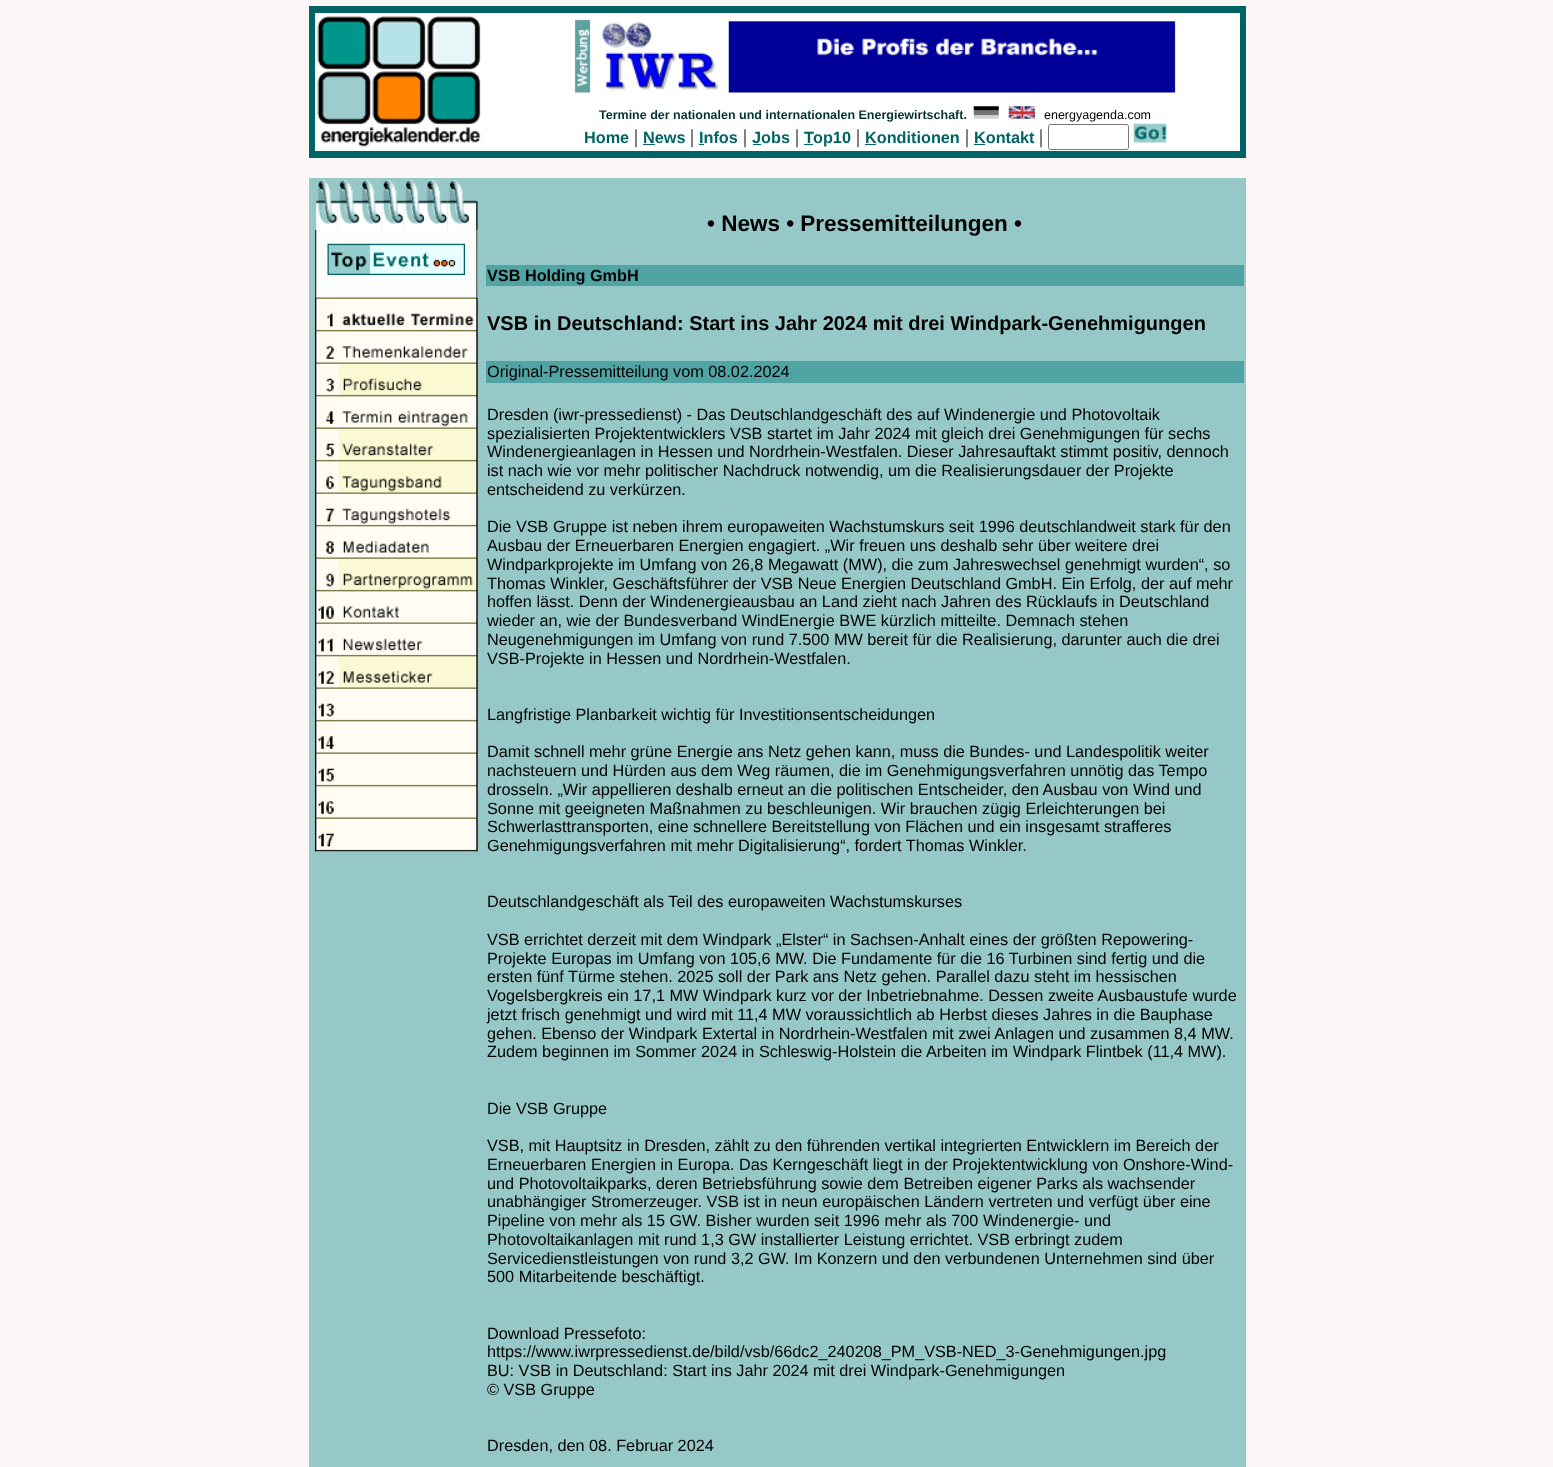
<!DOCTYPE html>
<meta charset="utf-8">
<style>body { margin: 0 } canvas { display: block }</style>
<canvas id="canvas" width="1553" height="1467"></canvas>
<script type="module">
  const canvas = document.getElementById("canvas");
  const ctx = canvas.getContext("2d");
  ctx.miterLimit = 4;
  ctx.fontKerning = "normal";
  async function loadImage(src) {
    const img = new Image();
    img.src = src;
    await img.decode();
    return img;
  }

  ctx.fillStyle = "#fcf7f7";
  ctx.fillRect(0, 0, 1553, 1467);
  ctx.fillStyle = "#006464";
  ctx.fillRect(309, 6, 937, 152);
  ctx.fillStyle = "#ffffff";
  ctx.fillRect(315, 13, 925, 138);
  ctx.drawImage(await loadImage("img1.png"), 317, 16, 164, 131);
  ctx.drawImage(await loadImage("img2.png"), 574, 19, 17, 74);
  ctx.drawImage(await loadImage("img3.png"), 602, 21, 574, 72);
  ctx.font = "bold 12.5px Liberation Sans";
  ctx.fillStyle = "#003333";
  ctx.fillText("Termine der nationalen und internationalen Energiewirtschaft.", 599, 119);
  ctx.drawImage(await loadImage("img4.png"), 973, 106, 26, 13);
  ctx.drawImage(await loadImage("img5.png"), 1008, 106, 27, 13);
  ctx.font = "12.5px Liberation Sans";
  ctx.fillStyle = "#000000";
  ctx.fillText("energyagenda.com", 1044, 119);
  ctx.font = "bold 16.25px Liberation Sans";
  ctx.fillStyle = "#006464";
  ctx.fillText("Home", 584, 143);
  ctx.font = "20px Liberation Serif";
  ctx.fillStyle = "#000000";
  ctx.fillText("|", 634, 143);
  ctx.font = "bold 16.25px Liberation Sans";
  ctx.fillStyle = "#006464";
  ctx.fillText("News", 643, 143);
  ctx.fillRect(643, 144, 12, 1);
  ctx.font = "20px Liberation Serif";
  ctx.fillStyle = "#000000";
  ctx.fillText("|", 690, 143);
  ctx.font = "bold 16.25px Liberation Sans";
  ctx.fillStyle = "#006464";
  ctx.fillText("Infos", 699, 143);
  ctx.fillRect(699, 144, 5, 1);
  ctx.font = "20px Liberation Serif";
  ctx.fillStyle = "#000000";
  ctx.fillText("|", 743, 143);
  ctx.font = "bold 16.25px Liberation Sans";
  ctx.fillStyle = "#006464";
  ctx.fillText("Jobs", 752, 143);
  ctx.fillRect(753, 144, 8, 1);
  ctx.font = "20px Liberation Serif";
  ctx.fillStyle = "#000000";
  ctx.fillText("|", 795, 143);
  ctx.font = "bold 16.25px Liberation Sans";
  ctx.fillStyle = "#006464";
  ctx.fillText("T", 804, 143);
  ctx.fillText("op10", 813, 143);
  ctx.fillRect(804, 144, 9, 1);
  ctx.font = "20px Liberation Serif";
  ctx.fillStyle = "#000000";
  ctx.fillText("|", 856, 143);
  ctx.font = "bold 16.25px Liberation Sans";
  ctx.fillStyle = "#006464";
  ctx.fillText("Konditionen", 865, 143);
  ctx.fillRect(865, 144, 11, 1);
  ctx.font = "20px Liberation Serif";
  ctx.fillStyle = "#000000";
  ctx.fillText("|", 965, 143);
  ctx.font = "bold 16.25px Liberation Sans";
  ctx.fillStyle = "#006464";
  ctx.fillText("Kontakt", 974, 143);
  ctx.fillRect(974, 144, 11, 1);
  ctx.font = "20px Liberation Serif";
  ctx.fillStyle = "#000000";
  ctx.fillText("|", 1039, 143);
  ctx.beginPath();
  ctx.roundRect(1048.5, 124.5, 80, 25, 2);
  ctx.strokeStyle = "#767676";
  ctx.stroke();
  ctx.drawImage(await loadImage("img6.png"), 1133, 123, 34, 20);
  ctx.fillStyle = "#96c8c8";
  ctx.fillRect(309, 178, 937, 1289);
  ctx.drawImage(await loadImage("img7.png"), 316, 179, 22, 51);
  ctx.drawImage(await loadImage("img8.png"), 337, 179, 23, 51);
  ctx.drawImage(await loadImage("img9.png"), 360, 179, 22, 51);
  ctx.drawImage(await loadImage("img10.png"), 381, 179, 23, 51);
  ctx.drawImage(await loadImage("img11.png"), 403, 179, 22, 51);
  ctx.drawImage(await loadImage("img12.png"), 425, 180, 23, 50);
  ctx.drawImage(await loadImage("img13.png"), 447, 179, 23, 51);
  ctx.drawImage(await loadImage("img14.png"), 470, 200, 7, 30);
  ctx.drawImage(await loadImage("img15.png"), 476, 201, 2, 29);
  ctx.fillStyle = "#ffffff";
  ctx.fillRect(315, 230, 163, 68);
  ctx.drawImage(await loadImage("img16.png"), 315, 230, 163, 68);
  ctx.drawImage(await loadImage("img17.png"), 327, 243, 138, 32);
  ctx.drawImage(await loadImage("img18.png"), 315, 297, 163, 555);
  ctx.drawImage(await loadImage("img19.png"), 315, 297, 163, 555);
  ctx.font = "bold 22.5px Liberation Sans";
  ctx.fillStyle = "#000000";
  ctx.fillText("• News • Pressemitteilungen •", 707, 231);
  ctx.fillStyle = "#51a4a4";
  ctx.fillRect(486, 265, 758, 21);
  ctx.font = "bold 16.25px Liberation Sans";
  ctx.fillStyle = "#000000";
  ctx.fillText("VSB Holding GmbH", 487, 281);
  ctx.font = "bold 20px Liberation Sans";
  ctx.fillText("VSB in Deutschland: Start ins Jahr 2024 mit drei Windpark-Genehmigungen", 487, 330);
  ctx.fillStyle = "#51a4a4";
  ctx.fillRect(486, 361, 758, 22);
  ctx.font = "16.25px Liberation Sans";
  ctx.fillStyle = "#000000";
  ctx.fillText("Original-Pressemitteilung vom 08.02.2024", 487, 377);
  ctx.fillText("Dresden (iwr-pressedienst) - Das Deutschlandgeschäft des auf Windenergie und Photovoltaik", 487, 420);
  ctx.fillText("spezialisierten Projektentwicklers VSB startet im Jahr 2024 mit gleich drei Genehmigungen für sechs", 487, 439);
  ctx.fillText("Windenergieanlagen in Hessen und Nordrhein-Westfalen. Dieser Jahresauftakt stimmt positiv, dennoch", 487, 457);
  ctx.fillText("ist nach wie vor mehr politischer Nachdruck notwendig, um die Realisierungsdauer der Projekte", 487, 476);
  ctx.fillText("entscheidend zu verkürzen.", 487, 495);
  ctx.fillText("Die VSB Gruppe ist neben ihrem europaweiten Wachstumskurs seit 1996 deutschlandweit stark für den", 487, 532);
  ctx.fillText("Ausbau der Erneuerbaren Energien engagiert. „Wir freuen uns deshalb sehr über weitere drei", 487, 551);
  ctx.fillText("Windparkprojekte im Umfang von 26,8 Megawatt (MW), die zum Jahreswechsel genehmigt wurden“, so", 487, 570);
  ctx.fillText("Thomas Winkler, Geschäftsführer der VSB Neue Energien Deutschland GmbH. Ein Erfolg, der auf mehr", 487, 589);
  ctx.fillText("hoffen lässt. Denn der Windenergieausbau an Land zieht nach Jahren des Rücklaufs in Deutschland", 487, 607);
  ctx.fillText("wieder an, wie der Bundesverband WindEnergie BWE kürzlich mitteilte. Demnach stehen", 487, 626);
  ctx.fillText("Neugenehmigungen im Umfang von rund 7.500 MW bereit für die Realisierung, darunter auch die drei", 487, 645);
  ctx.fillText("VSB-Projekte in Hessen und Nordrhein-Westfalen.", 487, 664);
  ctx.fillText("Langfristige Planbarkeit wichtig für Investitionsentscheidungen", 487, 720);
  ctx.fillText("Damit schnell mehr grüne Energie ans Netz gehen kann, muss die Bundes- und Landespolitik weiter", 487, 757);
  ctx.fillText("nachsteuern und Hürden aus dem Weg räumen, die im Genehmigungsverfahren unnötig das Tempo", 487, 776);
  ctx.fillText("drosseln. „Wir appellieren deshalb erneut an die politischen Entscheider, den Ausbau von Wind und", 487, 795);
  ctx.fillText("Sonne mit geeigneten Maßnahmen zu beschleunigen. Wir brauchen zügig Erleichterungen bei", 487, 814);
  ctx.fillText("Schwerlasttransporten, eine schnellere Bereitstellung von Flächen und ein insgesamt strafferes", 487, 832);
  ctx.fillText("Genehmigungsverfahren mit mehr Digitalisierung“, fordert Thomas Winkler.", 487, 851);
  ctx.fillText("Deutschlandgeschäft als Teil des europaweiten Wachstumskurses", 487, 907);
  ctx.fillText("VSB errichtet derzeit mit dem Windpark „Elster“ in Sachsen-Anhalt eines der größten Repowering-", 487, 945);
  ctx.fillText("Projekte Europas im Umfang von 105,6 MW. Die Fundamente für die 16 Turbinen sind fertig und die", 487, 964);
  ctx.fillText("ersten fünf Türme stehen. 2025 soll der Park ans Netz gehen. Parallel dazu steht im hessischen", 487, 982);
  ctx.fillText("Vogelsbergkreis ein 17,1 MW Windpark kurz vor der Inbetriebnahme. Dessen zweite Ausbaustufe wurde", 487, 1001);
  ctx.fillText("jetzt frisch genehmigt und wird mit 11,4 MW voraussichtlich ab Herbst dieses Jahres in die Bauphase", 487, 1020);
  ctx.fillText("gehen. Ebenso der Windpark Extertal in Nordrhein-Westfalen mit zwei Anlagen und zusammen 8,4 MW.", 487, 1039);
  ctx.fillText("Zudem beginnen im Sommer 2024 in Schleswig-Holstein die Arbeiten im Windpark Flintbek (11,4 MW).", 487, 1057);
  ctx.fillText("Die VSB Gruppe", 487, 1114);
  ctx.fillText("VSB, mit Hauptsitz in Dresden, zählt zu den führenden vertikal integrierten Entwicklern im Bereich der", 487, 1151);
  ctx.fillText("Erneuerbaren Energien in Europa. Das Kerngeschäft liegt in der Projektentwicklung von Onshore-Wind-", 487, 1170);
  ctx.fillText("und Photovoltaikparks, deren Betriebsführung sowie dem Betreiben eigener Parks als wachsender", 487, 1189);
  ctx.fillText("unabhängiger Stromerzeuger. VSB ist in neun europäischen Ländern vertreten und verfügt über eine", 487, 1207);
  ctx.fillText("Pipeline von mehr als 15 GW. Bisher wurden seit 1996 mehr als 700 Windenergie- und", 487, 1226);
  ctx.fillText("Photovoltaikanlagen mit rund 1,3 GW installierter Leistung errichtet. VSB erbringt zudem", 487, 1245);
  ctx.fillText("Servicedienstleistungen von rund 3,2 GW. Im Konzern und den verbundenen Unternehmen sind über", 487, 1264);
  ctx.fillText("500 Mitarbeitende beschäftigt.", 487, 1282);
  ctx.fillText("Download Pressefoto:", 487, 1339);
  ctx.fillText("https://www.iwrpressedienst.de/bild/vsb/66dc2_240208_PM_VSB-NED_3-Genehmigungen.jpg", 487, 1357);
  ctx.fillText("BU: VSB in Deutschland: Start ins Jahr 2024 mit drei Windpark-Genehmigungen", 487, 1376);
  ctx.fillText("© VSB Gruppe", 487, 1395);
  ctx.fillText("Dresden, den 08. Februar 2024", 487, 1451);
</script>
